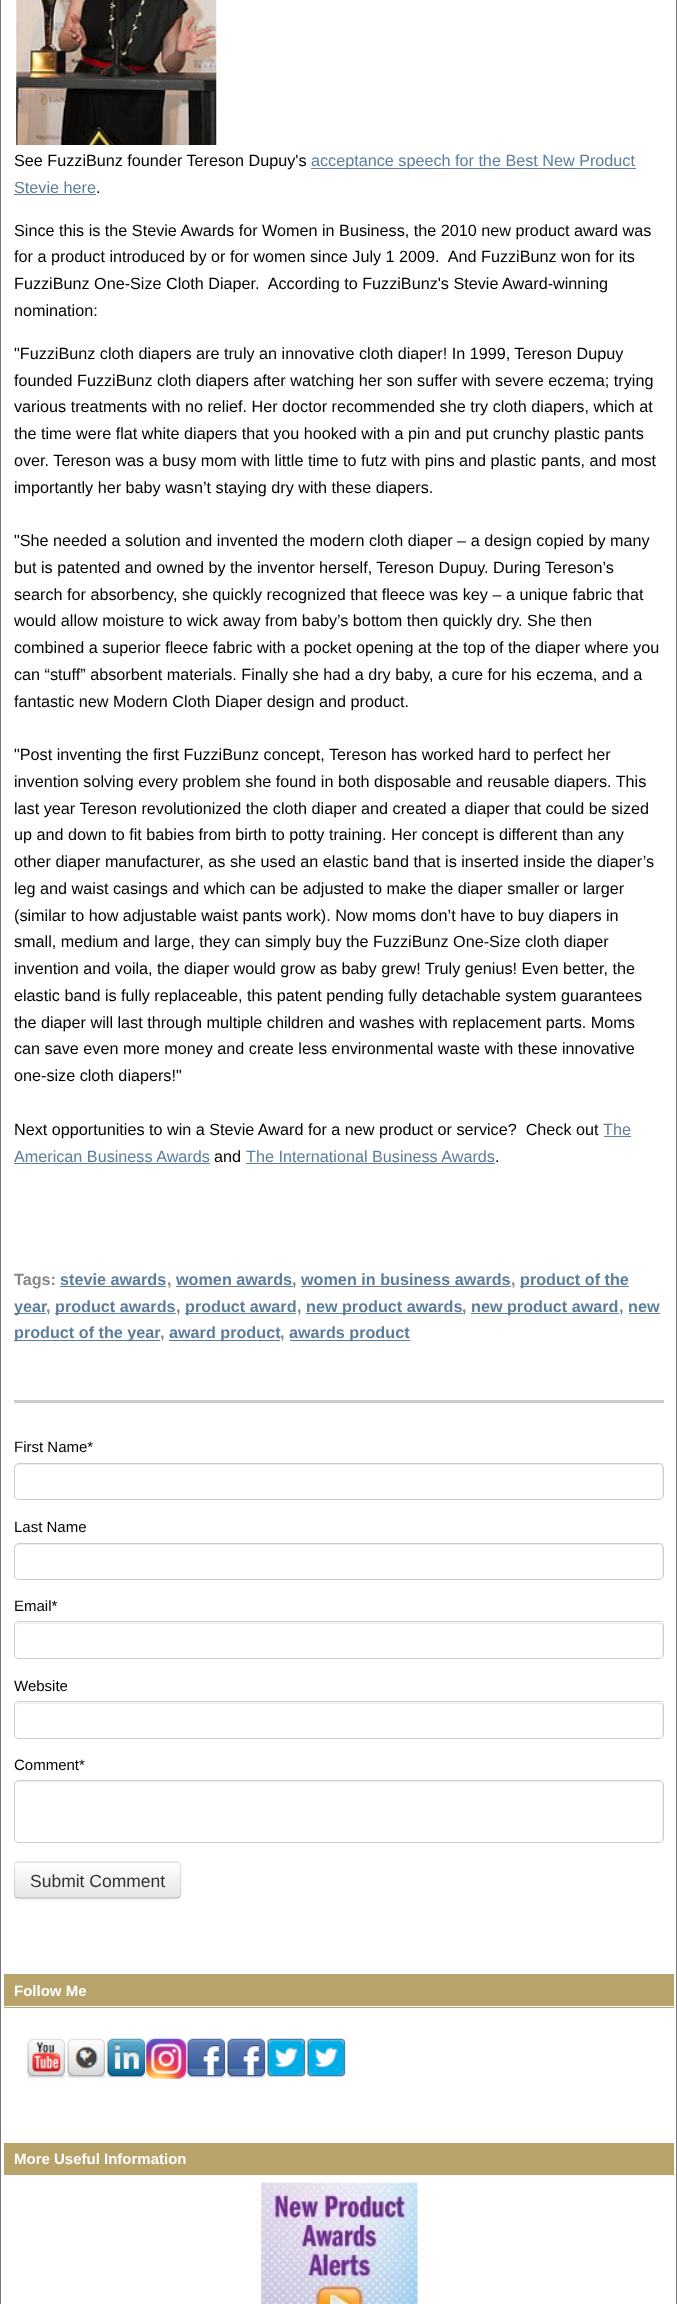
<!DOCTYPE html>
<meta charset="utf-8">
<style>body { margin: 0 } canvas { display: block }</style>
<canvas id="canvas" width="677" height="2304"></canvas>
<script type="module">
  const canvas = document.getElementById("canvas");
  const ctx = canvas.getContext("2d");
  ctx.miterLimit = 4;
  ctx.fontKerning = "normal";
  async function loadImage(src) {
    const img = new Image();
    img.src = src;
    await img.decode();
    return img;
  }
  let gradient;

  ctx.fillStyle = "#ffffff";
  ctx.fillRect(0, 0, 677, 2304);
  ctx.fillStyle = "#787878";
  ctx.beginPath();
  ctx.moveTo(0, -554);
  ctx.lineTo(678, -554);
  ctx.lineTo(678, 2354);
  ctx.bezierCurveTo(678, 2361, 672, 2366, 665, 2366);
  ctx.lineTo(12, 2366);
  ctx.bezierCurveTo(6, 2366, 0, 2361, 0, 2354);
  ctx.closePath();
  ctx.moveTo(1, -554);
  ctx.lineTo(676, -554);
  ctx.lineTo(676, 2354);
  ctx.bezierCurveTo(676, 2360, 671, 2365, 665, 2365);
  ctx.lineTo(12, 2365);
  ctx.bezierCurveTo(6, 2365, 1, 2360, 1, 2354);
  ctx.closePath();
  ctx.fill("evenodd");
  ctx.drawImage(await loadImage("img1.png"), 16, 0, 201, 145);
  ctx.font = "16.2px Liberation Sans";
  ctx.fillStyle = "#000000";
  ctx.fillText("See FuzziBunz founder Tereson Dupuy's", 14, 166);
  ctx.fillStyle = "#5c7d9b";
  ctx.fillRect(311, 168, 325, 1);
  ctx.fillText("acceptance speech for the Best New Product", 311, 166);
  ctx.fillText("Stevie here", 14, 193);
  ctx.fillRect(14, 194, 82, 1);
  ctx.fillStyle = "#000000";
  ctx.fillText(".", 96, 193);
  ctx.fillText("Since this is the Stevie Awards for Women in Business, the 2010 new product award was", 14, 236);
  ctx.fillText("for a product introduced by or for women since July 1 2009.  And FuzziBunz won for its", 14, 262);
  ctx.fillText("FuzziBunz One-Size Cloth Diaper.  According to FuzziBunz's Stevie Award-winning", 14, 289);
  ctx.fillText("nomination:", 14, 316);
  ctx.fillText("\"FuzziBunz cloth diapers are truly an innovative cloth diaper! In 1999, Tereson Dupuy", 14, 359);
  ctx.fillText("founded FuzziBunz cloth diapers after watching her son suffer with severe eczema; trying", 14, 386);
  ctx.fillText("various treatments with no relief. Her doctor recommended she try cloth diapers, which at", 14, 412);
  ctx.fillText("the time were flat white diapers that you hooked with a pin and put crunchy plastic pants", 14, 439);
  ctx.fillText("over. Tereson was a busy mom with little time to futz with pins and plastic pants, and most", 14, 466);
  ctx.fillText("importantly her baby wasn’t staying dry with these diapers.", 14, 493);
  ctx.fillText("\"She needed a solution and invented the modern cloth diaper – a design copied by many", 14, 546);
  ctx.fillText("but is patented and owned by the inventor herself, Tereson Dupuy. During Tereson’s", 14, 573);
  ctx.fillText("search for absorbency, she quickly recognized that fleece was key – a unique fabric that", 14, 600);
  ctx.fillText("would allow moisture to wick away from baby’s bottom then quickly dry. She then", 14, 626);
  ctx.fillText("combined a superior fleece fabric with a pocket opening at the top of the diaper where you", 14, 653);
  ctx.fillText("can “stuff” absorbent materials. Finally she had a dry baby, a cure for his eczema, and a", 14, 680);
  ctx.fillText("fantastic new Modern Cloth Diaper design and product.", 14, 707);
  ctx.fillText("\"Post inventing the first FuzziBunz concept, Tereson has worked hard to perfect her", 14, 760);
  ctx.fillText("invention solving every problem she found in both disposable and reusable diapers. This", 14, 787);
  ctx.fillText("last year Tereson revolutionized the cloth diaper and created a diaper that could be sized", 14, 814);
  ctx.fillText("up and down to fit babies from birth to potty training. Her concept is different than any", 14, 840);
  ctx.fillText("other diaper manufacturer, as she used an elastic band that is inserted inside the diaper’s", 14, 867);
  ctx.fillText("leg and waist casings and which can be adjusted to make the diaper smaller or larger", 14, 894);
  ctx.fillText("(similar to how adjustable waist pants work). Now moms don’t have to buy diapers in", 14, 921);
  ctx.fillText("small, medium and large, they can simply buy the FuzziBunz One-Size cloth diaper", 14, 947);
  ctx.fillText("invention and voila, the diaper would grow as baby grew! Truly genius! Even better, the", 14, 974);
  ctx.fillText("elastic band is fully replaceable, this patent pending fully detachable system guarantees", 14, 1001);
  ctx.fillText("the diaper will last through multiple children and washes with replacement parts. Moms", 14, 1028);
  ctx.fillText("can save even more money and create less environmental waste with these innovative", 14, 1054);
  ctx.fillText("one-size cloth diapers!\"", 14, 1081);
  ctx.fillText("Next opportunities to win a Stevie Award for a new product or service?  Check out", 14, 1135);
  ctx.fillStyle = "#5c7d9b";
  ctx.fillText("The", 603, 1135);
  ctx.fillRect(604, 1136, 27, 1);
  ctx.fillText("American Business Awards", 14, 1162);
  ctx.fillRect(14, 1163, 196, 1);
  ctx.fillStyle = "#000000";
  ctx.fillText("and", 214, 1162);
  ctx.fillStyle = "#5c7d9b";
  ctx.fillText("The International Business Awards", 246, 1162);
  ctx.fillRect(246, 1163, 249, 1);
  ctx.fillStyle = "#000000";
  ctx.fillText(".", 495, 1162);
  ctx.font = "bold 16.2px Liberation Sans";
  ctx.fillStyle = "#888888";
  ctx.fillText("Tags:", 14, 1285);
  ctx.fillStyle = "#5c7d9b";
  ctx.fillText("stevie awards", 60, 1285);
  ctx.fillRect(60, 1286, 106, 1);
  ctx.fillStyle = "#888888";
  ctx.fillText(",", 167, 1285);
  ctx.fillStyle = "#5c7d9b";
  ctx.fillText("women awards", 176, 1285);
  ctx.fillRect(176, 1286, 117, 1);
  ctx.fillStyle = "#888888";
  ctx.fillText(",", 292, 1285);
  ctx.fillStyle = "#5c7d9b";
  ctx.fillText("women in business awards", 301, 1285);
  ctx.fillRect(301, 1286, 210, 1);
  ctx.fillStyle = "#888888";
  ctx.fillText(",", 511, 1285);
  ctx.fillStyle = "#5c7d9b";
  ctx.fillRect(520, 1286, 109, 1);
  ctx.fillText("product of the", 520, 1285);
  ctx.fillRect(14, 1313, 32, 1);
  ctx.fillText("year", 14, 1312);
  ctx.fillStyle = "#888888";
  ctx.fillText(",", 46, 1312);
  ctx.fillStyle = "#5c7d9b";
  ctx.fillRect(55, 1313, 121, 1);
  ctx.fillText("product awards", 55, 1312);
  ctx.fillStyle = "#888888";
  ctx.fillText(",", 176, 1312);
  ctx.fillStyle = "#5c7d9b";
  ctx.fillRect(185, 1313, 111, 1);
  ctx.fillText("product award", 185, 1312);
  ctx.fillStyle = "#888888";
  ctx.fillText(",", 297, 1312);
  ctx.fillStyle = "#5c7d9b";
  ctx.fillRect(306, 1313, 157, 1);
  ctx.fillText("new product awards", 306, 1312);
  ctx.fillStyle = "#888888";
  ctx.fillText(",", 462, 1312);
  ctx.fillStyle = "#5c7d9b";
  ctx.fillRect(471, 1313, 148, 1);
  ctx.fillText("new product award", 471, 1312);
  ctx.fillStyle = "#888888";
  ctx.fillText(",", 619, 1312);
  ctx.fillStyle = "#5c7d9b";
  ctx.fillText("new", 628, 1312);
  ctx.fillRect(629, 1313, 31, 1);
  ctx.fillRect(14, 1340, 146, 1);
  ctx.fillText("product of the year", 14, 1338);
  ctx.fillStyle = "#888888";
  ctx.fillText(",", 160, 1338);
  ctx.fillStyle = "#5c7d9b";
  ctx.fillRect(169, 1340, 111, 1);
  ctx.fillText("award product", 169, 1338);
  ctx.fillStyle = "#888888";
  ctx.fillText(",", 280, 1338);
  ctx.fillStyle = "#5c7d9b";
  ctx.fillRect(290, 1340, 120, 1);
  ctx.fillText("awards product", 289, 1338);
  ctx.fillStyle = "#cccccc";
  ctx.fillRect(14, 1400, 650, 3);
  ctx.font = "15px Liberation Sans";
  ctx.fillStyle = "#000000";
  ctx.fillText("First Name*", 14, 1452);
  ctx.fillStyle = "#ececec";
  ctx.beginPath();
  ctx.moveTo(19, 1465);
  ctx.lineTo(659, 1465);
  ctx.bezierCurveTo(661, 1465, 662, 1467, 662, 1469);
  ctx.lineTo(662, 1498);
  ctx.bezierCurveTo(662, 1497, 663, 1496, 663, 1495);
  ctx.lineTo(663, 1468);
  ctx.bezierCurveTo(663, 1466, 661, 1464, 659, 1464);
  ctx.lineTo(19, 1464);
  ctx.bezierCurveTo(17, 1464, 15, 1466, 15, 1468);
  ctx.lineTo(15, 1469);
  ctx.bezierCurveTo(15, 1467, 17, 1465, 19, 1465);
  ctx.closePath();
  ctx.fill();
  ctx.beginPath();
  ctx.roundRect(14.5, 1463.5, 649, 36, 4.5);
  ctx.strokeStyle = "#cccccc";
  ctx.stroke();
  ctx.fillStyle = "#000000";
  ctx.fillText("Last Name", 14, 1532);
  ctx.fillStyle = "#ececec";
  ctx.beginPath();
  ctx.moveTo(19, 1545);
  ctx.lineTo(659, 1545);
  ctx.bezierCurveTo(661, 1545, 662, 1547, 662, 1549);
  ctx.lineTo(662, 1578);
  ctx.bezierCurveTo(662, 1577, 663, 1576, 663, 1575);
  ctx.lineTo(663, 1548);
  ctx.bezierCurveTo(663, 1546, 661, 1544, 659, 1544);
  ctx.lineTo(19, 1544);
  ctx.bezierCurveTo(17, 1544, 15, 1546, 15, 1548);
  ctx.lineTo(15, 1549);
  ctx.bezierCurveTo(15, 1547, 17, 1545, 19, 1545);
  ctx.closePath();
  ctx.fill();
  ctx.beginPath();
  ctx.roundRect(14.5, 1543.5, 649, 36, 4.5);
  ctx.stroke();
  ctx.fillStyle = "#000000";
  ctx.fillText("Email*", 14, 1611);
  ctx.fillStyle = "#ececec";
  ctx.beginPath();
  ctx.moveTo(19, 1624);
  ctx.lineTo(659, 1624);
  ctx.bezierCurveTo(661, 1624, 662, 1625, 662, 1628);
  ctx.lineTo(662, 1657);
  ctx.bezierCurveTo(662, 1656, 663, 1655, 663, 1654);
  ctx.lineTo(663, 1627);
  ctx.bezierCurveTo(663, 1625, 661, 1623, 659, 1623);
  ctx.lineTo(19, 1623);
  ctx.bezierCurveTo(17, 1623, 15, 1625, 15, 1627);
  ctx.lineTo(15, 1628);
  ctx.bezierCurveTo(15, 1625, 17, 1624, 19, 1624);
  ctx.closePath();
  ctx.fill();
  ctx.beginPath();
  ctx.roundRect(14.5, 1621.5, 649, 37, 4.5);
  ctx.stroke();
  ctx.fillStyle = "#000000";
  ctx.fillText("Website", 14, 1691);
  ctx.fillStyle = "#ececec";
  ctx.beginPath();
  ctx.moveTo(19, 1704);
  ctx.lineTo(659, 1704);
  ctx.bezierCurveTo(661, 1704, 662, 1705, 662, 1708);
  ctx.lineTo(662, 1737);
  ctx.bezierCurveTo(662, 1736, 663, 1735, 663, 1734);
  ctx.lineTo(663, 1707);
  ctx.bezierCurveTo(663, 1705, 661, 1703, 659, 1703);
  ctx.lineTo(19, 1703);
  ctx.bezierCurveTo(17, 1703, 15, 1705, 15, 1707);
  ctx.lineTo(15, 1708);
  ctx.bezierCurveTo(15, 1705, 17, 1704, 19, 1704);
  ctx.closePath();
  ctx.fill();
  ctx.beginPath();
  ctx.roundRect(14.5, 1701.5, 649, 37, 4.5);
  ctx.stroke();
  ctx.fillStyle = "#000000";
  ctx.fillText("Comment*", 14, 1770);
  ctx.fillStyle = "#ececec";
  ctx.beginPath();
  ctx.moveTo(19, 1782);
  ctx.lineTo(659, 1782);
  ctx.bezierCurveTo(661, 1782, 662, 1784, 662, 1786);
  ctx.lineTo(662, 1840);
  ctx.bezierCurveTo(663, 1839, 663, 1838, 663, 1837);
  ctx.lineTo(663, 1785);
  ctx.bezierCurveTo(663, 1783, 661, 1781, 659, 1781);
  ctx.lineTo(19, 1781);
  ctx.bezierCurveTo(17, 1781, 15, 1783, 15, 1785);
  ctx.lineTo(15, 1786);
  ctx.bezierCurveTo(15, 1784, 17, 1782, 19, 1782);
  ctx.closePath();
  ctx.fill();
  ctx.beginPath();
  ctx.roundRect(14.5, 1780.5, 649, 62, 4.5);
  ctx.stroke();
  ctx.fillStyle = "rgba(0, 0, 0, 0.05)";
  ctx.filter = "blur(1px)";
  ctx.beginPath();
  ctx.roundRect(14, 1863, 167, 37, 5);
  ctx.fill();
  ctx.filter = "none";
  ctx.fillStyle = "#f5f5f5";
  ctx.beginPath();
  ctx.roundRect(14, 1861, 167, 38, 5);
  ctx.fill();
  ctx.save();
  ctx.beginPath();
  ctx.roundRect(14, 1861, 167, 38, 5);
  ctx.clip();
  gradient = ctx.createLinearGradient(98, 1863, 98, 1898);
  gradient.addColorStop(0, "#ffffff");
  gradient.addColorStop(1, "#e6e6e6");
  ctx.fillStyle = gradient;
  ctx.fillRect(14, 1863, 167, 35);
  ctx.restore();
  ctx.beginPath();
  ctx.moveTo(179.5, 1897);
  ctx.bezierCurveTo(178.5, 1897.5, 177.5, 1898, 176, 1898);
  ctx.lineTo(19, 1898);
  ctx.bezierCurveTo(17.5, 1898, 16.5, 1897.5, 15.5, 1897);
  ctx.strokeStyle = "#b3b3b3";
  ctx.lineWidth = 1.2;
  ctx.stroke();
  ctx.beginPath();
  ctx.moveTo(15.5, 1897);
  ctx.bezierCurveTo(15, 1896, 14.5, 1895, 14.5, 1894);
  ctx.lineTo(14.5, 1866);
  ctx.bezierCurveTo(14.5, 1865, 15, 1864, 15.5, 1863);
  ctx.bezierCurveTo(16.5, 1862.5, 17.5, 1862, 19, 1862);
  ctx.lineTo(176, 1862);
  ctx.bezierCurveTo(177.5, 1862, 178.5, 1862.5, 179.5, 1863);
  ctx.bezierCurveTo(180, 1864, 180.5, 1865, 180.5, 1866);
  ctx.lineTo(180.5, 1894);
  ctx.bezierCurveTo(180.5, 1895, 180, 1896, 179.5, 1897);
  ctx.strokeStyle = "rgba(0, 0, 0, 0.1)";
  ctx.stroke();
  ctx.font = "17.5px Liberation Sans";
  ctx.fillStyle = "#333333";
  ctx.fillText("Submit Comment", 30, 1887);
  ctx.fillStyle = "#b8a36a";
  ctx.fillRect(4, 1974, 670, 34);
  ctx.fillStyle = "#ffffff";
  ctx.fillRect(4, 2006, 670, 1);
  ctx.font = "bold 15px Liberation Sans";
  ctx.fillText("Follow Me", 14, 1996);
  ctx.drawImage(await loadImage("img2.png"), 27, 2038, 39, 41);
  ctx.drawImage(await loadImage("img3.png"), 67, 2038, 39, 41);
  ctx.drawImage(await loadImage("img4.png"), 107, 2038, 39, 40);
  ctx.drawImage(await loadImage("img5.png"), 146, 2038, 41, 41);
  ctx.drawImage(await loadImage("img6.png"), 187, 2038, 39, 41);
  ctx.drawImage(await loadImage("img6.png"), 227, 2038, 39, 41);
  ctx.drawImage(await loadImage("img7.png"), 267, 2038, 39, 39);
  ctx.drawImage(await loadImage("img7.png"), 307, 2038, 39, 39);
  ctx.fillStyle = "#b8a36a";
  ctx.fillRect(4, 2143, 670, 32);
  ctx.fillStyle = "#ffffff";
  ctx.fillText("More Useful Information", 14, 2164);
  ctx.drawImage(await loadImage("img8.png"), 261, 2182, 157, 122);
</script>
